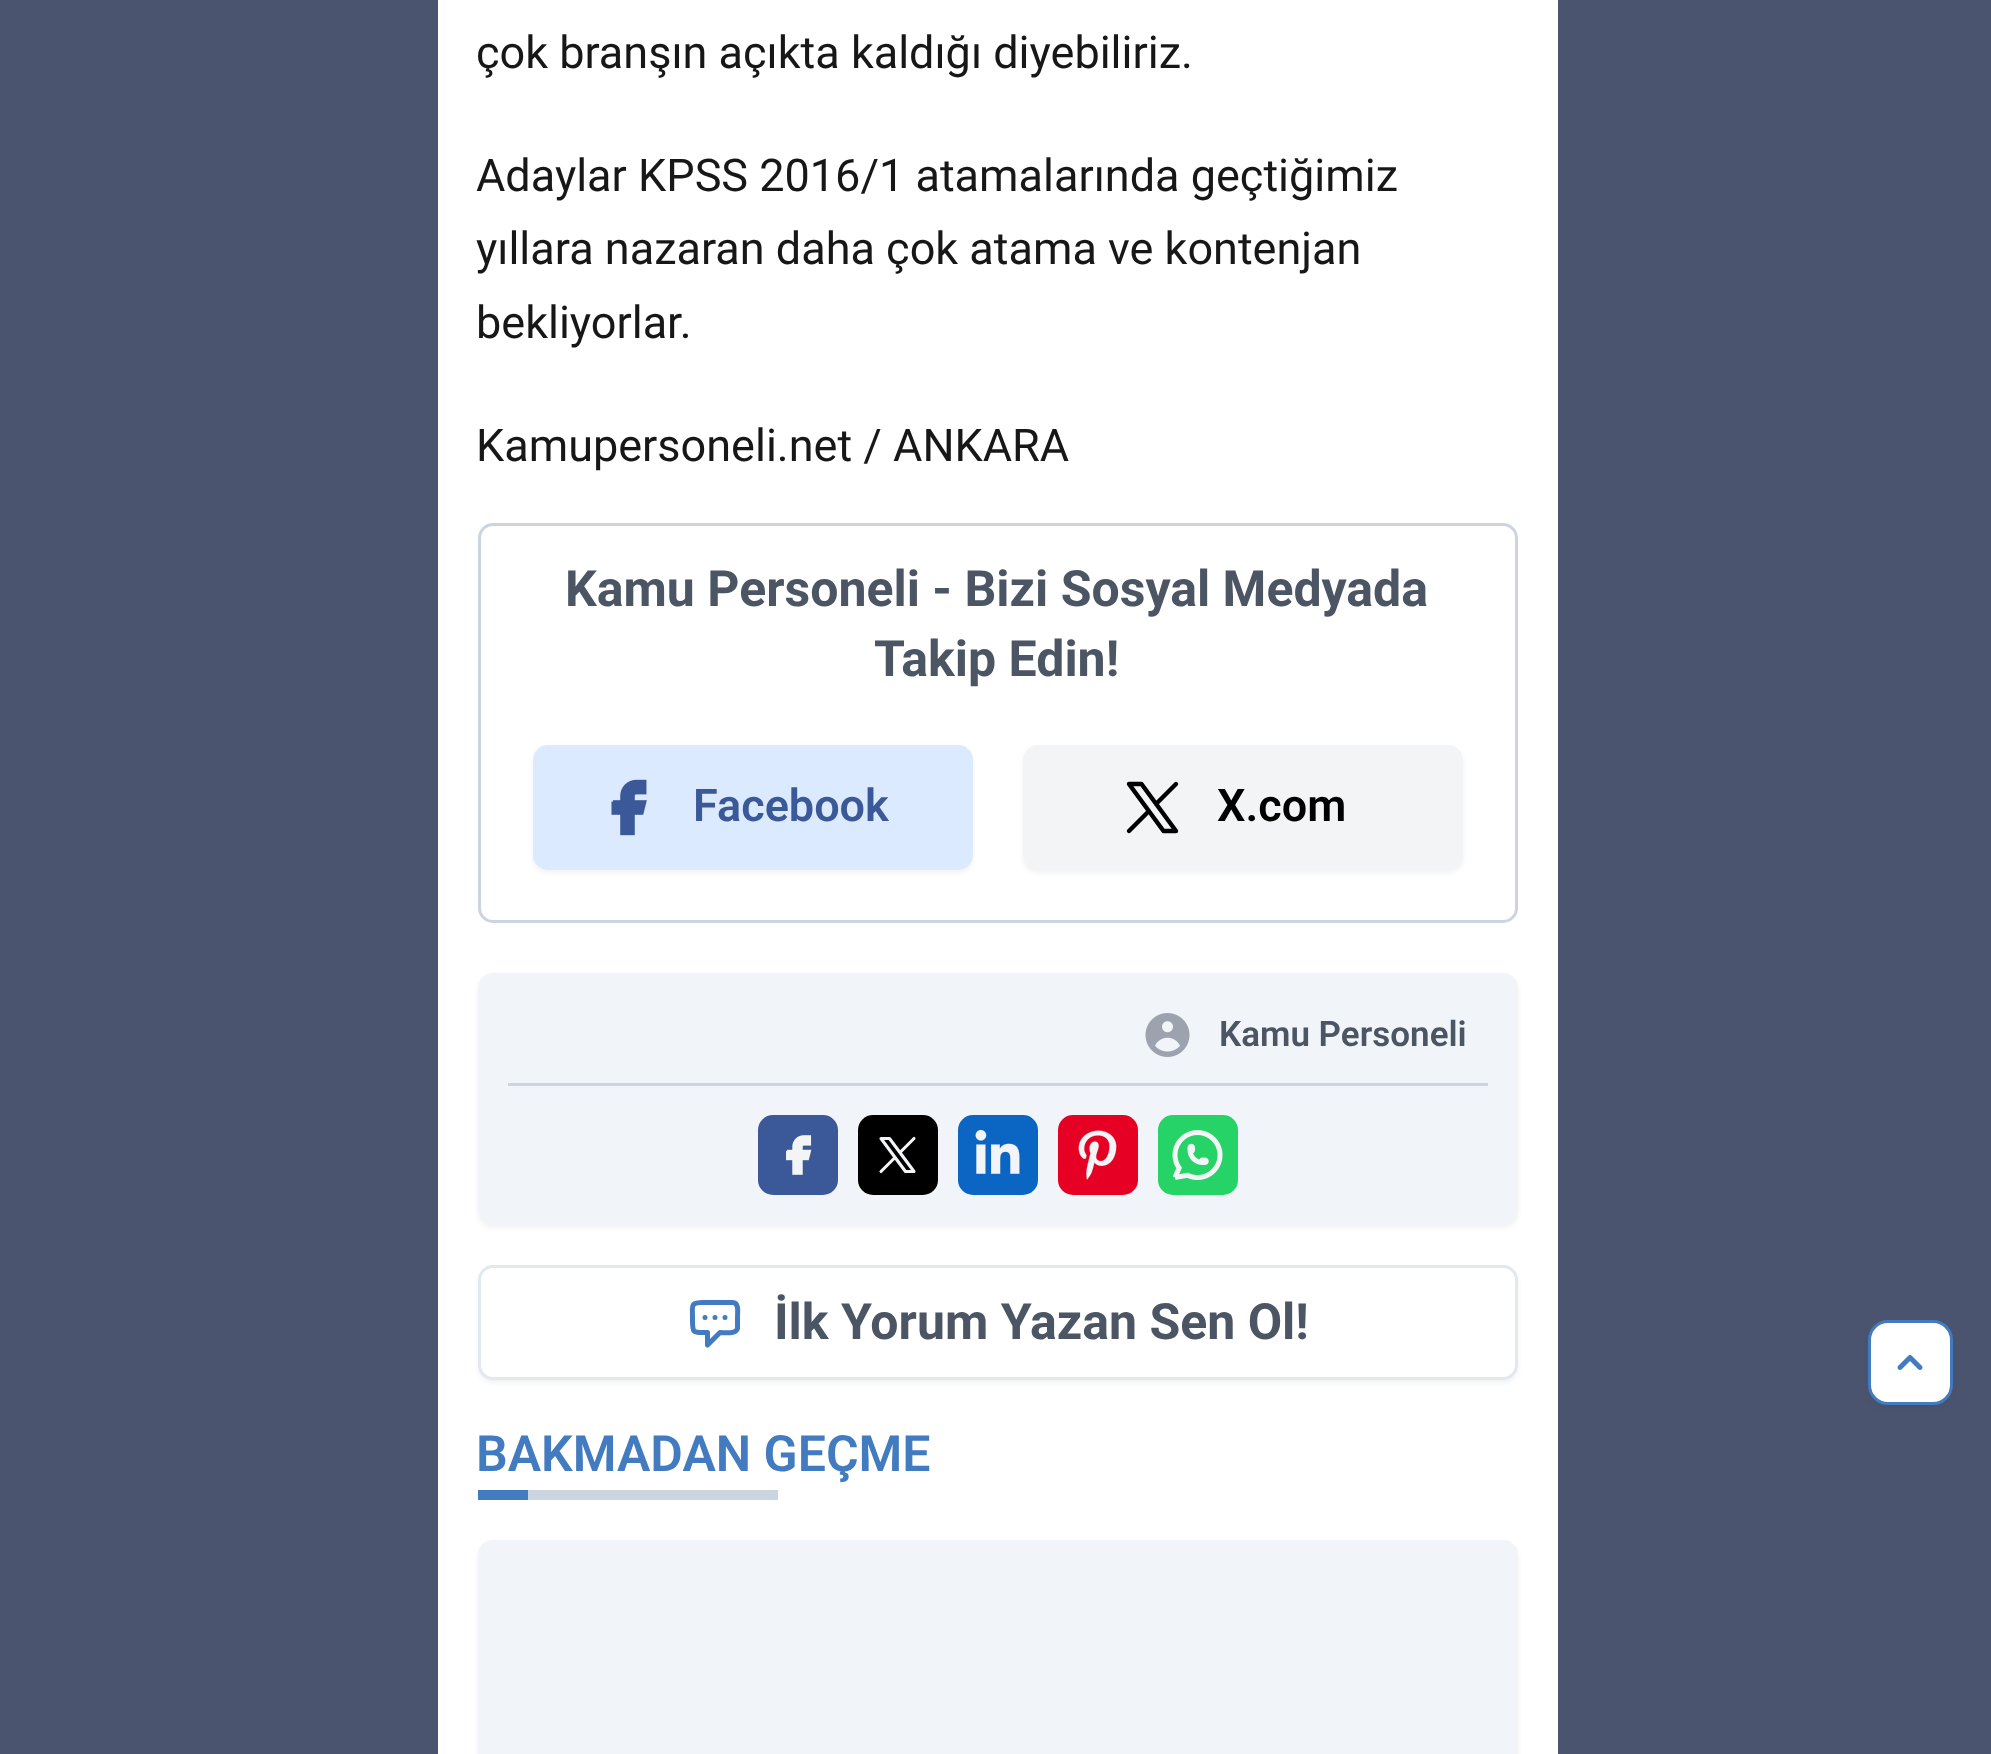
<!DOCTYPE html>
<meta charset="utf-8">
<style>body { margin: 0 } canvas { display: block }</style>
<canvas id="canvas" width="1991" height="1754"></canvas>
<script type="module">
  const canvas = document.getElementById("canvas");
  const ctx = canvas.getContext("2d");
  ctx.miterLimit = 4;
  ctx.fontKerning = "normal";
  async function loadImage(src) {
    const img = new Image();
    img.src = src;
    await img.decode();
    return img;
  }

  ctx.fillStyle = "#4a546f";
  ctx.fillRect(0, 0, 1991, 1754);
  ctx.fillStyle = "#ffffff";
  ctx.fillRect(438, 0, 1120, 1754);
  ctx.font = "45px Roboto";
  ctx.fillStyle = "#171717";
  ctx.fillText("çok branşın açıkta kaldığı diyebiliriz.", 476, 68);
  ctx.fillText("Adaylar KPSS 2016/1 atamalarında geçtiğimiz", 476, 191);
  ctx.fillText("yıllara nazaran daha çok atama ve kontenjan", 476, 264);
  ctx.fillText("bekliyorlar.", 476, 338);
  ctx.fillText("Kamupersoneli.net / ANKARA", 476, 461);
  ctx.beginPath();
  ctx.roundRect(479.5, 524.5, 1037, 397, 13.5);
  ctx.strokeStyle = "#cbd5e1";
  ctx.lineWidth = 3;
  ctx.stroke();
  ctx.font = "bold 50px Roboto";
  ctx.fillStyle = "#4b5563";
  ctx.fillText("Kamu Personeli - Bizi Sosyal Medyada", 565, 606);
  ctx.fillText("Takip Edin!", 874, 676);
  ctx.fillStyle = "rgba(0, 0, 0, 0.05)";
  ctx.filter = "blur(2.5px)";
  ctx.beginPath();
  ctx.roundRect(533, 748, 440, 125, 15);
  ctx.fill();
  ctx.filter = "none";
  ctx.fillStyle = "#dbeafe";
  ctx.beginPath();
  ctx.roundRect(533, 745, 440, 125, 15);
  ctx.fill();
  ctx.drawImage(await loadImage("img1.png"), 611, 779, 36, 57);
  ctx.font = "600 45px Roboto";
  ctx.fillStyle = "#3b5998";
  ctx.fillText("Facebook", 693, 821);
  ctx.fillStyle = "rgba(0, 0, 0, 0.05)";
  ctx.filter = "blur(2.5px)";
  ctx.beginPath();
  ctx.roundRect(1023, 748, 440, 125, 15);
  ctx.fill();
  ctx.filter = "none";
  ctx.fillStyle = "#f3f4f6";
  ctx.beginPath();
  ctx.roundRect(1023, 745, 440, 125, 15);
  ctx.fill();
  ctx.beginPath();
  ctx.moveTo(1129, 784);
  ctx.lineTo(1163.5, 831);
  ctx.lineTo(1176, 831);
  ctx.lineTo(1141.5, 784);
  ctx.closePath();
  ctx.moveTo(1129, 831);
  ctx.lineTo(1149, 811);
  ctx.moveTo(1156, 804);
  ctx.lineTo(1176, 784);
  ctx.strokeStyle = "#000000";
  ctx.lineWidth = 4.4;
  ctx.lineCap = "round";
  ctx.lineJoin = "round";
  ctx.stroke();
  ctx.fillStyle = "#000000";
  ctx.fillText("X.com", 1217, 821);
  ctx.fillStyle = "rgba(0, 0, 0, 0.05)";
  ctx.filter = "blur(2.5px)";
  ctx.beginPath();
  ctx.roundRect(478, 975, 1040, 253, 15);
  ctx.fill();
  ctx.filter = "none";
  ctx.fillStyle = "#f1f5f9";
  ctx.beginPath();
  ctx.roundRect(478, 973, 1040, 252, 15);
  ctx.fill();
  ctx.fillStyle = "#cbd5e1";
  ctx.fillRect(508, 1083, 980, 3);
  ctx.drawImage(await loadImage("img2.png"), 1145, 1013, 45, 44);
  ctx.font = "600 35px Roboto";
  ctx.fillStyle = "#4b5563";
  ctx.fillText("Kamu Personeli", 1219, 1046);
  ctx.fillStyle = "#3b5998";
  ctx.beginPath();
  ctx.roundRect(758, 1115, 80, 80, 15);
  ctx.fill();
  ctx.drawImage(await loadImage("img3.png"), 786, 1135, 26, 40);
  ctx.fillStyle = "#000000";
  ctx.beginPath();
  ctx.roundRect(858, 1115, 80, 80, 15);
  ctx.fill();
  ctx.beginPath();
  ctx.moveTo(881, 1138.5);
  ctx.lineTo(905.5, 1171.5);
  ctx.lineTo(914, 1171.5);
  ctx.lineTo(889.5, 1138.5);
  ctx.closePath();
  ctx.moveTo(881, 1171.5);
  ctx.lineTo(895, 1157.5);
  ctx.moveTo(900, 1152.5);
  ctx.lineTo(914, 1138.5);
  ctx.strokeStyle = "#f3f4f6";
  ctx.lineWidth = 3.1;
  ctx.stroke();
  ctx.fillStyle = "#0a66c2";
  ctx.beginPath();
  ctx.roundRect(958, 1115, 80, 80, 15);
  ctx.fill();
  ctx.drawImage(await loadImage("img4.png"), 975, 1130, 45, 44);
  ctx.fillStyle = "#e60023";
  ctx.beginPath();
  ctx.roundRect(1058, 1115, 80, 80, 15);
  ctx.fill();
  ctx.drawImage(await loadImage("img5.png"), 1078, 1130, 39, 50);
  ctx.fillStyle = "#25d366";
  ctx.beginPath();
  ctx.roundRect(1158, 1115, 80, 80, 15);
  ctx.fill();
  ctx.drawImage(await loadImage("img6.png"), 1172, 1130, 51, 50);
  ctx.fillStyle = "rgba(0, 0, 0, 0.05)";
  ctx.filter = "blur(2.5px)";
  ctx.beginPath();
  ctx.roundRect(478, 1268, 1040, 115, 15);
  ctx.fill();
  ctx.filter = "none";
  ctx.fillStyle = "#ffffff";
  ctx.beginPath();
  ctx.roundRect(479.5, 1266.5, 1037, 112, 13.5);
  ctx.fill();
  ctx.strokeStyle = "#e2e8f0";
  ctx.lineWidth = 3;
  ctx.lineJoin = "miter";
  ctx.stroke();
  ctx.beginPath();
  ctx.moveTo(705, 1317.5);
  ctx.lineTo(705, 1317.5);
  ctx.moveTo(715, 1317.5);
  ctx.lineTo(715, 1317.5);
  ctx.moveTo(725, 1317.5);
  ctx.lineTo(725, 1317.5);
  ctx.moveTo(707.5, 1332.5);
  ctx.bezierCurveTo(692, 1332.5, 692.5, 1334, 692.5, 1317.5);
  ctx.bezierCurveTo(692.5, 1305, 690, 1302.5, 703.5, 1302.5);
  ctx.lineTo(732.5, 1302.5);
  ctx.bezierCurveTo(739.5, 1302.5, 737.5, 1313, 737.5, 1317.5);
  ctx.lineTo(737.5, 1328.5);
  ctx.bezierCurveTo(736, 1334.5, 724.5, 1332.5, 720, 1332.5);
  ctx.lineTo(707.5, 1345);
  ctx.closePath();
  ctx.strokeStyle = "#427bbf";
  ctx.lineWidth = 5;
  ctx.lineJoin = "round";
  ctx.stroke();
  ctx.font = "bold 50px Roboto";
  ctx.fillStyle = "#4b5563";
  ctx.fillText("İlk Yorum Yazan Sen Ol!", 774, 1339);
  ctx.font = "600 50px Roboto";
  ctx.fillStyle = "#427bbf";
  ctx.fillText("BAKMADAN GEÇME", 476, 1471);
  ctx.fillRect(478, 1490, 50, 10);
  ctx.fillStyle = "#cbd5e1";
  ctx.fillRect(528, 1490, 250, 10);
  ctx.fillStyle = "rgba(0, 0, 0, 0.05)";
  ctx.filter = "blur(2.5px)";
  ctx.beginPath();
  ctx.roundRect(478, 1543, 1040, 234, 15);
  ctx.fill();
  ctx.filter = "none";
  ctx.fillStyle = "#f1f5f9";
  ctx.beginPath();
  ctx.roundRect(478, 1540, 1040, 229, 15);
  ctx.fill();
  ctx.fillStyle = "rgba(0, 0, 0, 0.1)";
  ctx.filter = "blur(5px)";
  ctx.beginPath();
  ctx.roundRect(1873, 1330, 75, 75, 15);
  ctx.fill();
  ctx.filter = "none";
  ctx.fillStyle = "#ffffff";
  ctx.beginPath();
  ctx.roundRect(1869.5, 1321.5, 82, 82, 18.5);
  ctx.fill();
  ctx.lineWidth = 3;
  ctx.lineJoin = "miter";
  ctx.stroke();
  ctx.drawImage(await loadImage("img7.png"), 1897, 1355, 26, 15);
</script>
